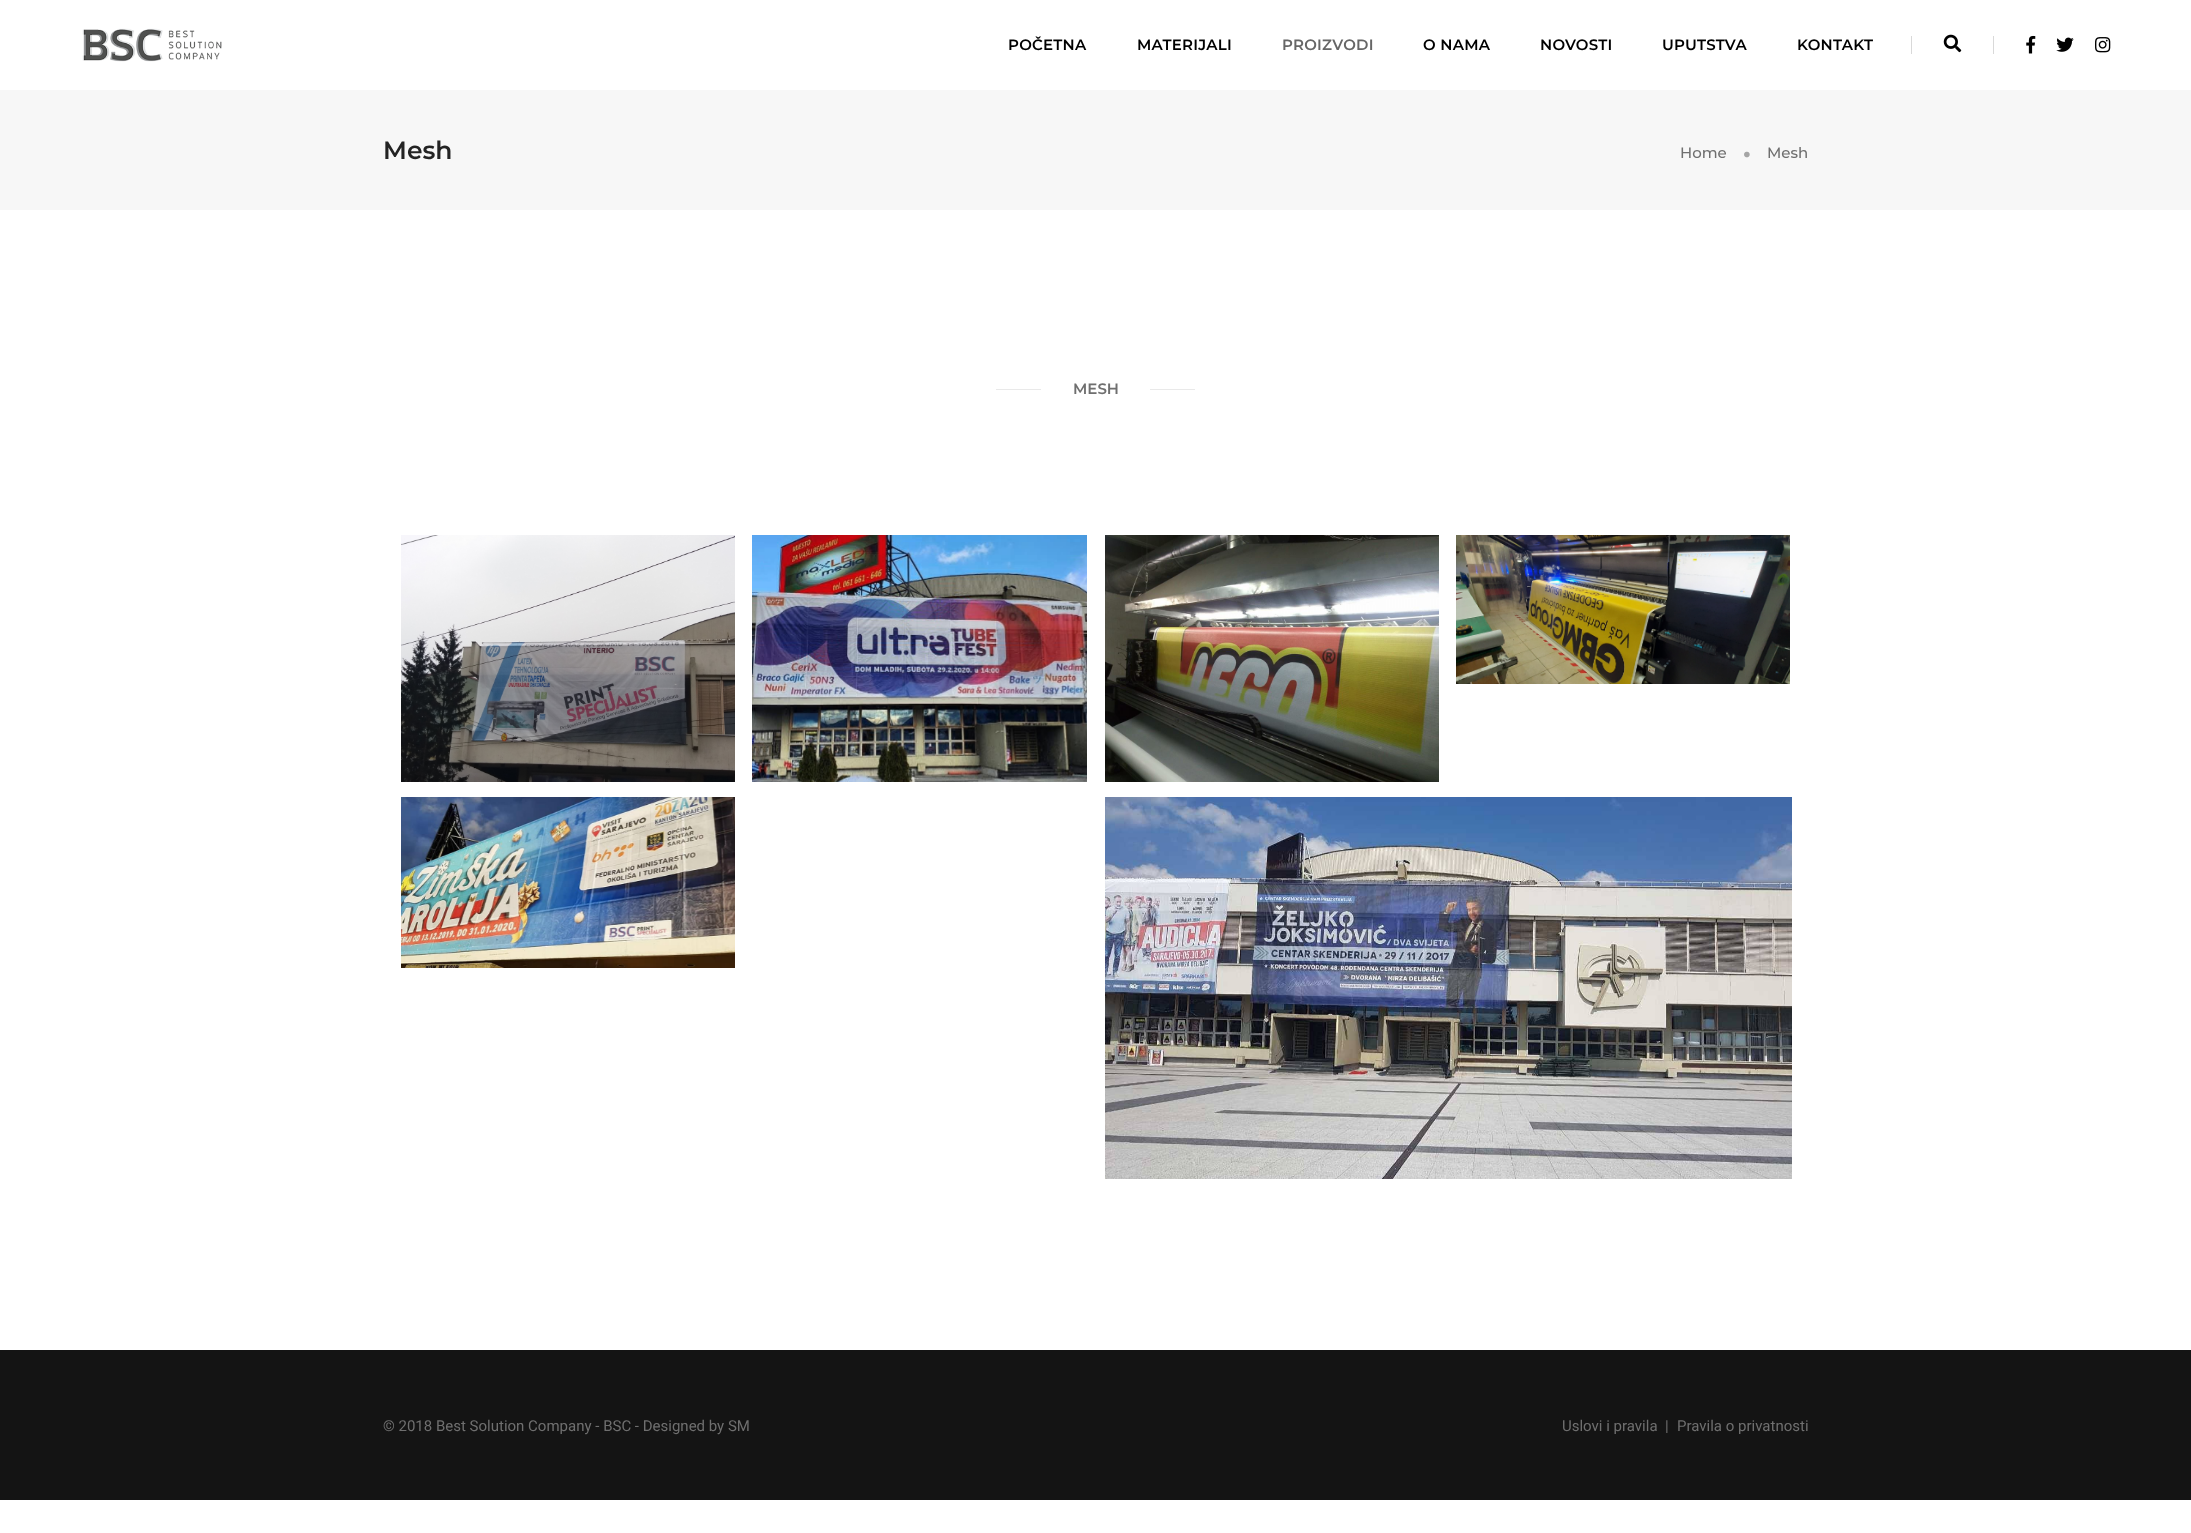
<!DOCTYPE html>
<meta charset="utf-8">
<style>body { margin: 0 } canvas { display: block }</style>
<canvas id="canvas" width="2191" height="1533"></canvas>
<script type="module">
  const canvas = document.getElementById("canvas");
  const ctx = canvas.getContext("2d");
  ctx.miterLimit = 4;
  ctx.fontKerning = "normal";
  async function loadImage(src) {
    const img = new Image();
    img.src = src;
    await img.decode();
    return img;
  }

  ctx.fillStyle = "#ffffff";
  ctx.fillRect(0, 0, 2191, 1533);
  ctx.drawImage(await loadImage("img1.png"), 82, 28, 140, 34);
  ctx.letterSpacing = "0.25px";
  ctx.font = "600 15px Montserrat";
  ctx.fillStyle = "#000000";
  ctx.fillText("POČETNA", 1008, 50);
  ctx.fillText("MATERIJALI", 1137, 50);
  ctx.fillStyle = "#666666";
  ctx.fillText("PROIZVODI", 1282, 50);
  ctx.fillStyle = "#000000";
  ctx.fillText("O NAMA", 1423, 50);
  ctx.fillText("NOVOSTI", 1540, 50);
  ctx.fillText("UPUTSTVA", 1662, 50);
  ctx.fillText("KONTAKT", 1797, 50);
  ctx.fillStyle = "#d9d9d9";
  ctx.fillRect(1911, 36, 1, 18);
  ctx.drawImage(await loadImage("img2.png"), 1943, 34, 19, 19);
  ctx.fillRect(1993, 36, 1, 18);
  ctx.drawImage(await loadImage("img3.png"), 2026, 35, 10, 19);
  ctx.drawImage(await loadImage("img4.png"), 2056, 37, 18, 15);
  ctx.drawImage(await loadImage("img5.png"), 2095, 37, 16, 16);
  ctx.fillStyle = "#f7f7f7";
  ctx.fillRect(0, 90, 2191, 120);
  ctx.letterSpacing = "0px";
  ctx.font = "600 25px Montserrat";
  ctx.fillStyle = "#232323";
  ctx.fillText("Mesh", 383, 159);
  ctx.font = "500 15px Montserrat";
  ctx.fillStyle = "#6f6f6f";
  ctx.fillText("Home", 1680, 158);
  ctx.font = "500 31px Montserrat";
  ctx.fillStyle = "#a5a5a5";
  ctx.fillText("•", 1742, 163);
  ctx.font = "500 15px Montserrat";
  ctx.fillStyle = "#6f6f6f";
  ctx.fillText("Mesh", 1767, 158);
  ctx.fillStyle = "#e9e9e9";
  ctx.fillRect(996, 389, 45, 1);
  ctx.font = "600 15px Montserrat";
  ctx.fillStyle = "#6f6f6f";
  ctx.fillText("MESH", 1073, 394);
  ctx.fillStyle = "#e9e9e9";
  ctx.fillRect(1150, 389, 45, 1);
  ctx.drawImage(await loadImage("img6.png"), 401, 535, 334, 247);
  ctx.drawImage(await loadImage("img7.png"), 752, 535, 335, 247);
  ctx.drawImage(await loadImage("img8.png"), 1105, 535, 334, 247);
  ctx.drawImage(await loadImage("img9.png"), 1456, 535, 334, 149);
  ctx.drawImage(await loadImage("img10.png"), 401, 797, 334, 171);
  ctx.drawImage(await loadImage("img11.png"), 1105, 797, 687, 382);
  ctx.fillStyle = "#141414";
  ctx.fillRect(0, 1350, 2191, 150);
  ctx.font = "15px Roboto";
  ctx.fillStyle = "#6f6f6f";
  ctx.fillText("© 2018 Best Solution Company - BSC - Designed by SM", 383, 1431);
  ctx.fillText("Uslovi i pravila", 1562, 1431);
  ctx.fillText("|", 1665, 1431);
  ctx.fillText("Pravila o privatnosti", 1677, 1431);
</script>
